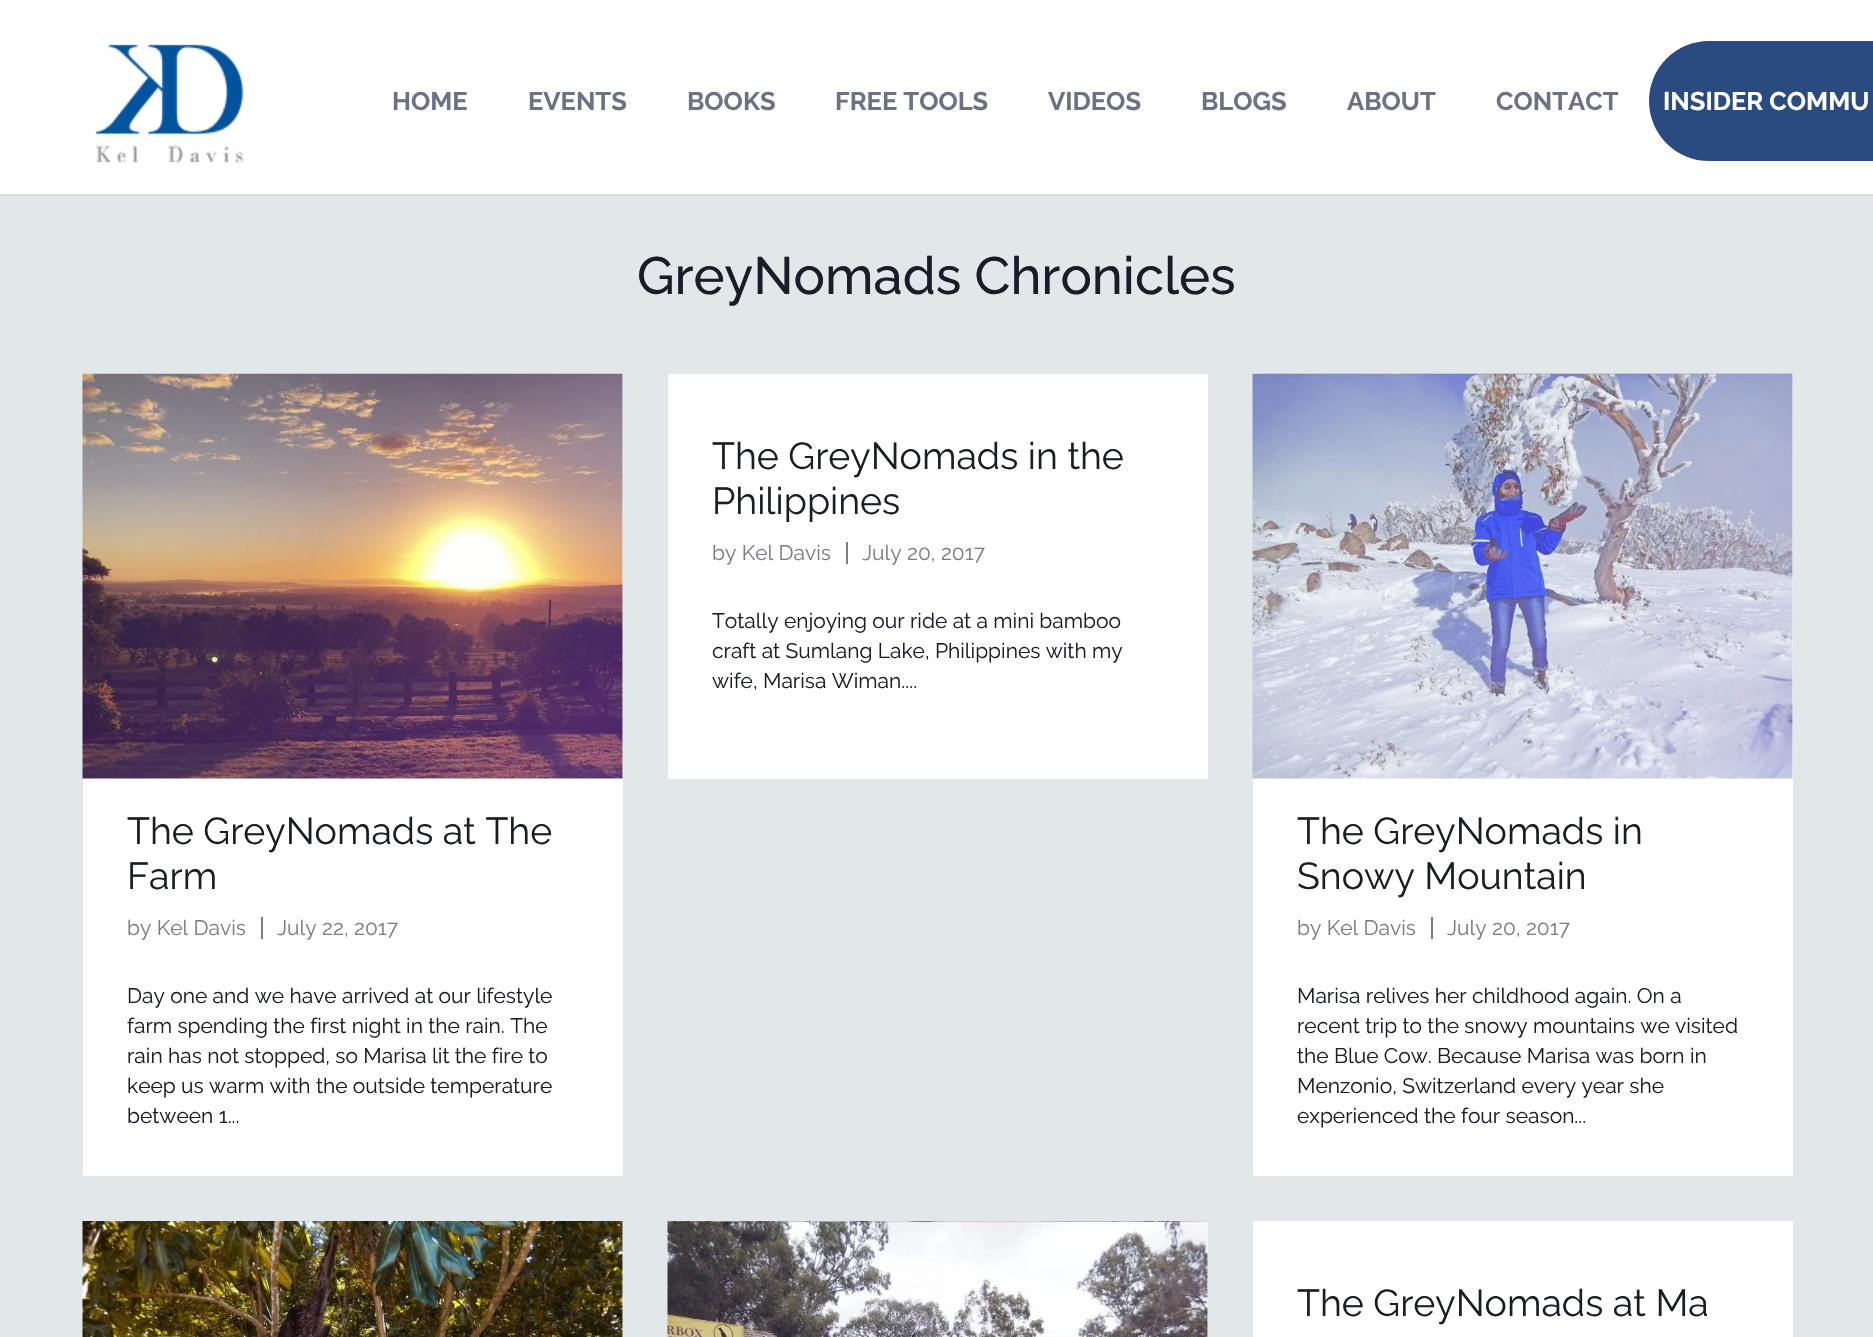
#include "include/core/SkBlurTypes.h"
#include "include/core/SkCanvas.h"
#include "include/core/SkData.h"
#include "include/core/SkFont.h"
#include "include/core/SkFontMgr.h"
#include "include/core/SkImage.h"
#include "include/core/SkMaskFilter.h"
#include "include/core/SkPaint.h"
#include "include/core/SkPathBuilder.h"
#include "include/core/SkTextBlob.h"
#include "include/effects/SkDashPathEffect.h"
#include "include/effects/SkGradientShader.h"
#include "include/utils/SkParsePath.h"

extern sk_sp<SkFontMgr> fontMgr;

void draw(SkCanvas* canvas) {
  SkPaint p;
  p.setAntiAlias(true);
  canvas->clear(SkColorSetRGB(226, 231, 234));
  p.setColor(SK_ColorWHITE);
  canvas->drawRect(SkRect::MakeLTRB(0, 0, 1873, 194), p);
  p.setColor(SkColorSetRGB(217, 217, 217));
  canvas->drawRect(SkRect::MakeLTRB(0, 194, 1873, 196), p);
  canvas->drawImageRect(SkImages::DeferredFromEncodedData(SkData::MakeFromFileName("images/1.png")), SkRect::MakeLTRB(95, 44, 244, 163), SkSamplingOptions());
  p.setColor(SkColorSetRGB(42, 75, 128));
  canvas->drawRoundRect(SkRect::MakeLTRB(1649, 41, 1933, 161), 60, 60, p);
  p.setColor(SK_ColorWHITE);
  canvas->drawRect(SkRect::MakeLTRB(668, 374, 1208, 779), p);
  p.setColor(SkColorSetRGB(123, 125, 131));
  canvas->drawRect(SkRect::MakeLTRB(846, 542, 848, 564), p);
  p.setColor(SK_ColorWHITE);
  canvas->drawRect(SkRect::MakeLTRB(83, 374, 623, 1176), p);
  canvas->drawImageRect(SkImages::DeferredFromEncodedData(SkData::MakeFromFileName("images/2.png")), SkRect::MakeLTRB(82, 373, 623, 779), SkSamplingOptions());
  p.setColor(SkColorSetRGB(123, 125, 131));
  canvas->drawRect(SkRect::MakeLTRB(261, 917, 263, 939), p);
  p.setColor(SK_ColorWHITE);
  canvas->drawRect(SkRect::MakeLTRB(1253, 374, 1793, 1176), p);
  canvas->drawImageRect(SkImages::DeferredFromEncodedData(SkData::MakeFromFileName("images/3.png")), SkRect::MakeLTRB(1252, 373, 1793, 779), SkSamplingOptions());
  p.setColor(SkColorSetRGB(123, 125, 131));
  canvas->drawRect(SkRect::MakeLTRB(1431, 917, 1433, 939), p);
  p.setColor(SK_ColorWHITE);
  canvas->drawRect(SkRect::MakeLTRB(622, 1221, 623, 1337), p);
  canvas->drawImageRect(SkImages::DeferredFromEncodedData(SkData::MakeFromFileName("images/4.png")), SkRect::MakeLTRB(82, 1221, 623, 1337), SkSamplingOptions());
  canvas->drawRect(SkRect::MakeLTRB(1207, 1221, 1208, 1337), p);
  canvas->drawImageRect(SkImages::DeferredFromEncodedData(SkData::MakeFromFileName("images/5.png")), SkRect::MakeLTRB(667, 1221, 1208, 1337), SkSamplingOptions());
  canvas->drawRect(SkRect::MakeLTRB(1253, 1221, 1793, 1337), p);
  SkFont font1(fontMgr->matchFamilyStyle("Raleway", SkFontStyle::Bold()), 25.5f);
  font1.setSubpixel(true);
  p.setColor(SkColorSetRGB(106, 114, 132));
  canvas->drawString("HOME", 392, 110, font1, p);
  canvas->drawString("EVENTS", 528, 110, font1, p);
  canvas->drawString("BOOKS", 687, 110, font1, p);
  canvas->drawString("FREE TOOLS", 835, 110, font1, p);
  canvas->drawString("VIDEOS", 1048, 110, font1, p);
  canvas->drawString("BLOGS", 1201, 110, font1, p);
  canvas->drawString("ABOUT", 1347, 110, font1, p);
  canvas->drawString("CONTACT", 1496, 110, font1, p);
  p.setColor(SK_ColorWHITE);
  canvas->drawString("INSIDER COMMU", 1663, 110, font1, p);
  SkFont font2(fontMgr->matchFamilyStyle("Raleway", SkFontStyle(500, SkFontStyle::kNormal_Width, SkFontStyle::kUpright_Slant)), 52.5f);
  font2.setSubpixel(true);
  p.setColor(SkColorSetRGB(26, 29, 38));
  canvas->drawString("GreyNomads Chronicles", 637, 294, font2, p);
  SkFont font3(fontMgr->matchFamilyStyle("Raleway", SkFontStyle::Normal()), 37.5f);
  font3.setSubpixel(true);
  canvas->drawString("The GreyNomads in the", 712, 469, font3, p);
  canvas->drawString("Philippines", 712, 514, font3, p);
  SkFont font4(fontMgr->matchFamilyStyle("Raleway", SkFontStyle::Normal()), 21);
  font4.setSubpixel(true);
  p.setColor(SkColorSetRGB(123, 125, 131));
  canvas->drawString("by Kel Davis", 712, 560, font4, p);
  canvas->drawString("July 20, 2017", 862, 560, font4, p);
  p.setColor(SkColorSetRGB(26, 29, 38));
  canvas->drawString("Totally enjoying our ride at a mini bamboo", 712, 628, font4, p);
  canvas->drawString("craft at Sumlang Lake, Philippines with my", 712, 658, font4, p);
  canvas->drawString("wife, Marisa Wiman....", 712, 688, font4, p);
  canvas->drawString("The GreyNomads at The", 127, 844, font3, p);
  canvas->drawString("Farm", 127, 889, font3, p);
  p.setColor(SkColorSetRGB(123, 125, 131));
  canvas->drawString("by Kel Davis", 127, 935, font4, p);
  canvas->drawString("July 22, 2017", 277, 935, font4, p);
  p.setColor(SkColorSetRGB(26, 29, 38));
  canvas->drawString("Day one and we have arrived at our lifestyle", 127, 1003, font4, p);
  canvas->drawString("farm spending the first night in the rain. The", 127, 1033, font4, p);
  canvas->drawString("rain has not stopped, so Marisa lit the fire to", 127, 1063, font4, p);
  canvas->drawString("keep us warm with the outside temperature", 127, 1093, font4, p);
  canvas->drawString("between 1...", 127, 1123, font4, p);
  canvas->drawString("The GreyNomads in", 1297, 844, font3, p);
  canvas->drawString("Snowy Mountain", 1297, 889, font3, p);
  p.setColor(SkColorSetRGB(123, 125, 131));
  canvas->drawString("by Kel Davis", 1297, 935, font4, p);
  canvas->drawString("July 20, 2017", 1447, 935, font4, p);
  p.setColor(SkColorSetRGB(26, 29, 38));
  canvas->drawString("Marisa relives her childhood again. On a", 1297, 1003, font4, p);
  canvas->drawString("recent trip to the snowy mountains we visited", 1297, 1033, font4, p);
  canvas->drawString("the Blue Cow. Because Marisa was born in", 1297, 1063, font4, p);
  canvas->drawString("Menzonio, Switzerland every year she", 1297, 1093, font4, p);
  canvas->drawString("experienced the four season...", 1297, 1123, font4, p);
  canvas->drawString("The GreyNomads at Ma", 1297, 1316, font3, p);
}
